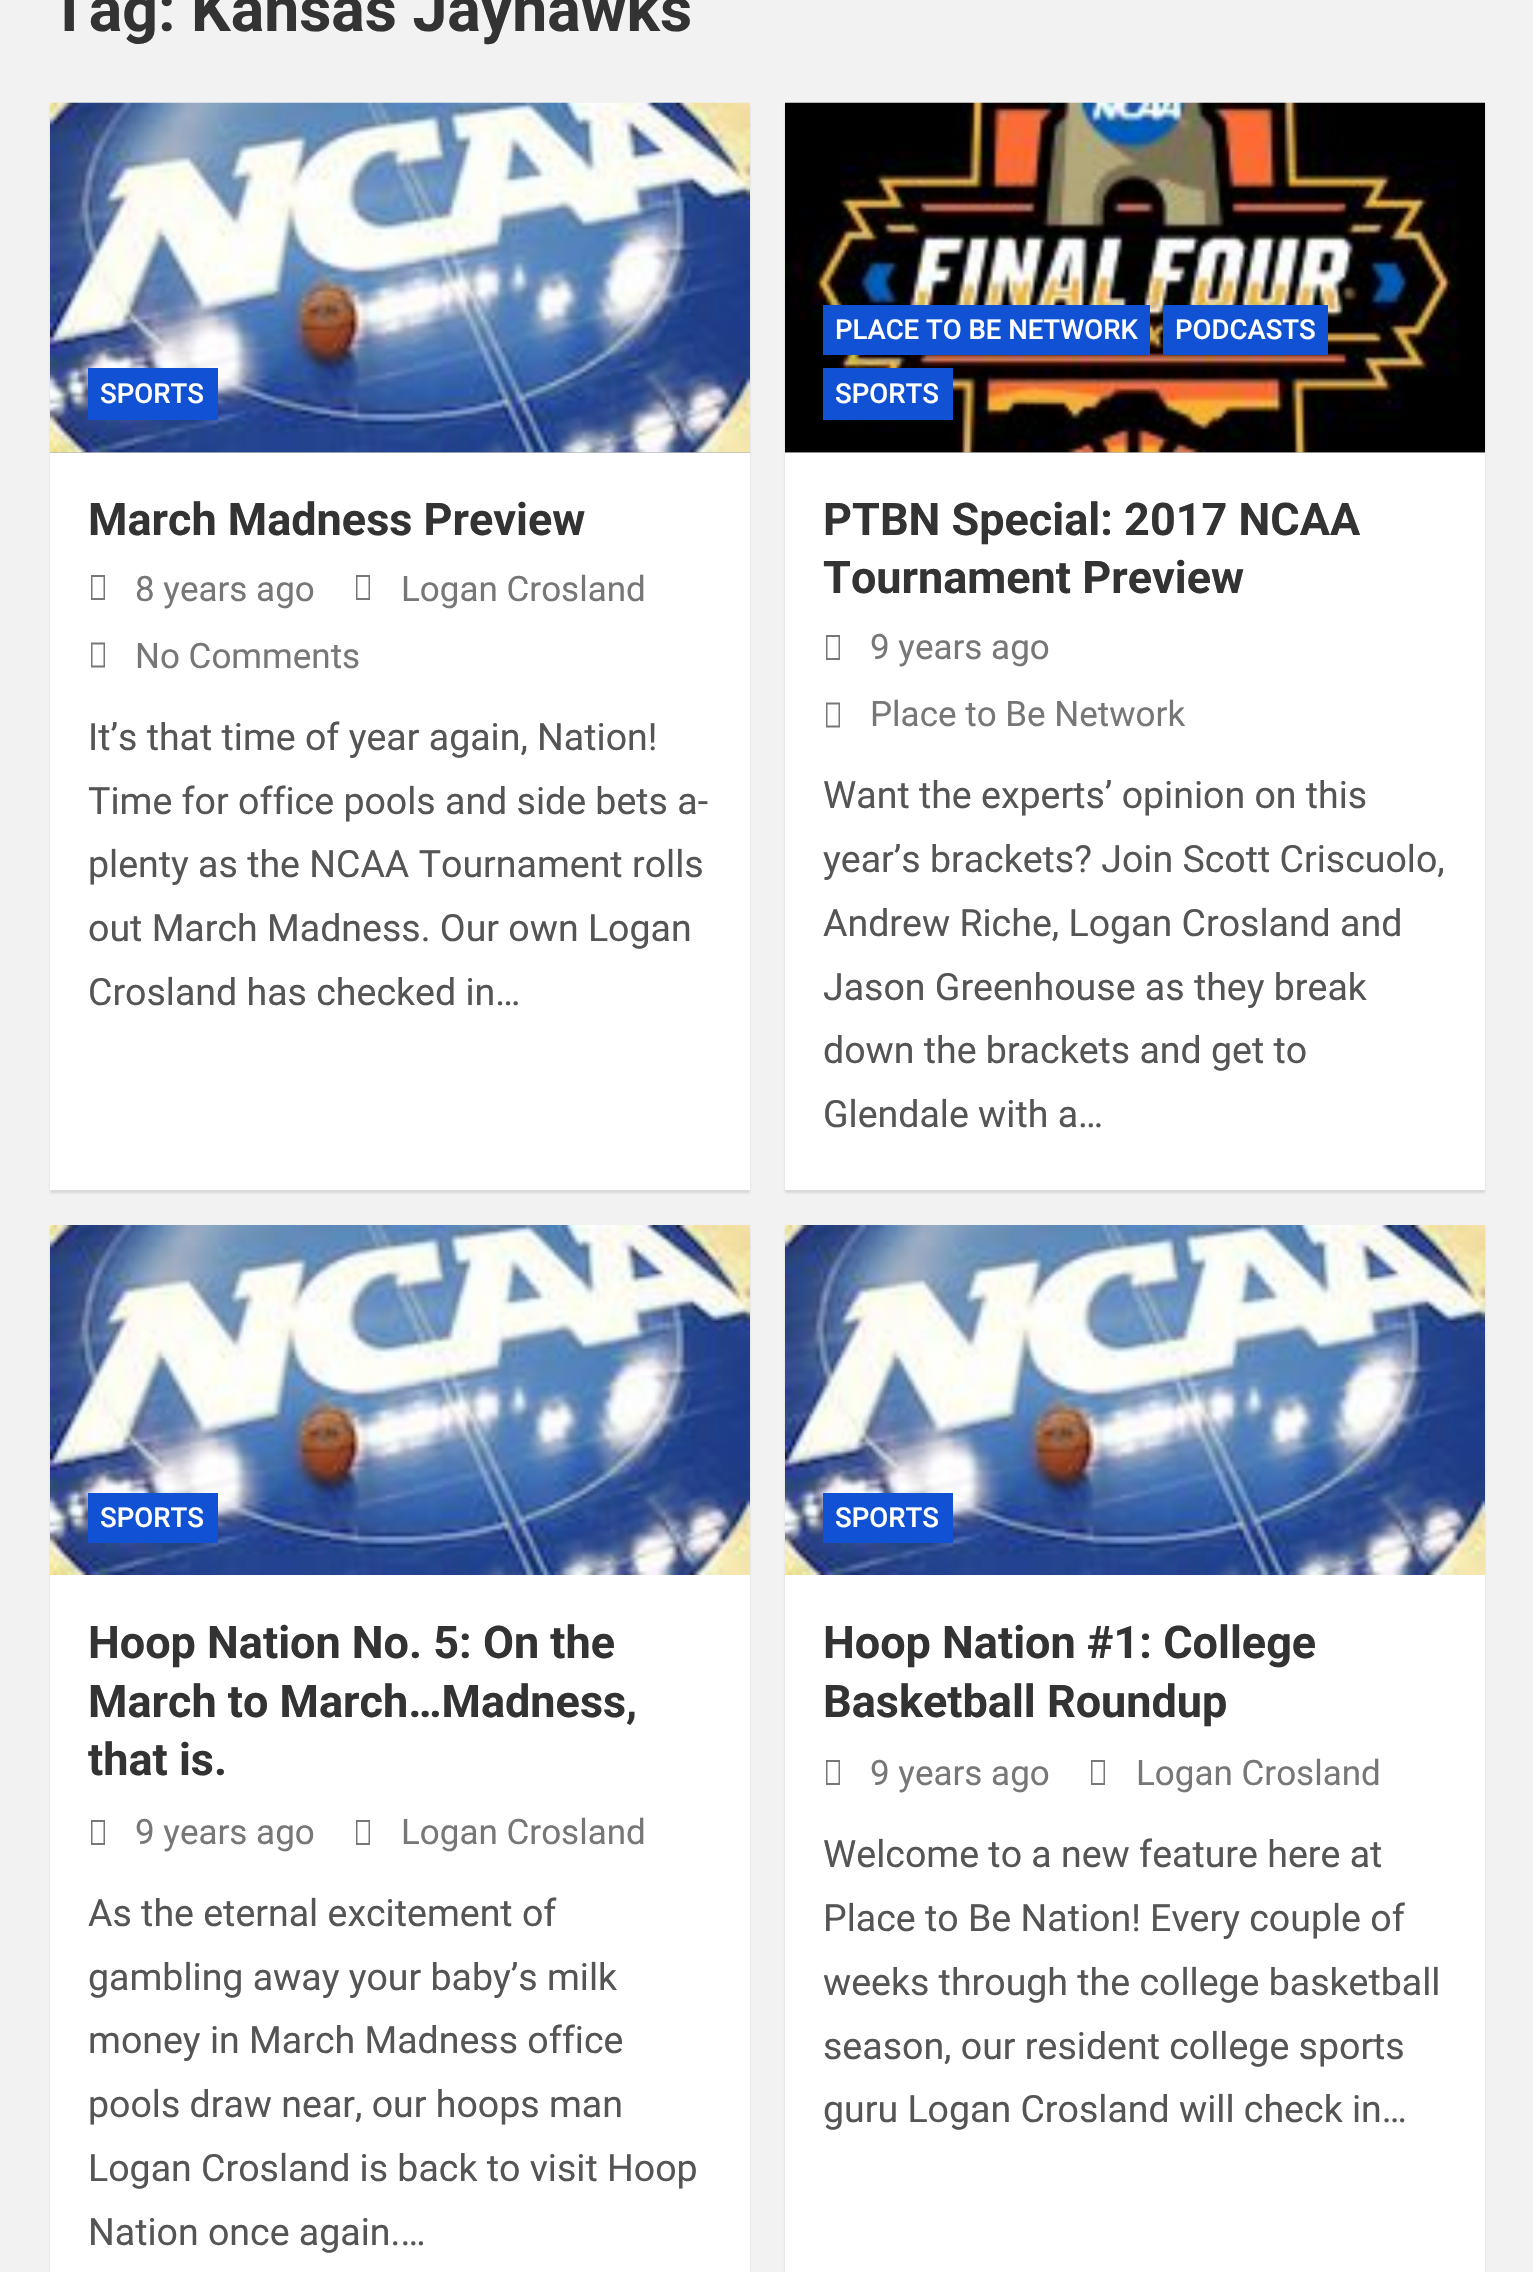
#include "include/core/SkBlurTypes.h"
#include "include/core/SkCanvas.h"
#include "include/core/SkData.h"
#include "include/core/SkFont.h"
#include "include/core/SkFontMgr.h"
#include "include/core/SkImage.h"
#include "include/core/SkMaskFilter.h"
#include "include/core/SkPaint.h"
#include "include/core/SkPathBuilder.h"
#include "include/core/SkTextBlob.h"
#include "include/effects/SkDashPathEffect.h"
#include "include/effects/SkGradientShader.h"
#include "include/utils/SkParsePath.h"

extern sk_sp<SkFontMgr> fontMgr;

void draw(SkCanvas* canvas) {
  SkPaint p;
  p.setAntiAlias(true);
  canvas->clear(SkColorSetRGB(242, 242, 242));
  p.setColor(SkColorSetARGB(26, 0, 0, 0));
  p.setMaskFilter(SkMaskFilter::MakeBlur(kNormal_SkBlurStyle, 1));
  canvas->drawRect(SkRect::MakeLTRB(50, 105, 750, 1193), p);
  p.setMaskFilter(nullptr);
  p.setColor(SK_ColorWHITE);
  canvas->drawRect(SkRect::MakeLTRB(50, 453, 750, 1190), p);
  p.setColor(SkColorSetRGB(187, 187, 187));
  canvas->drawRect(SkRect::MakeLTRB(50, 452, 750, 453), p);
  canvas->drawImageRect(SkImages::DeferredFromEncodedData(SkData::MakeFromFileName("images/1.png")), SkRect::MakeLTRB(50, 102, 750, 453), SkSamplingOptions());
  p.setColor(SkColorSetRGB(17, 81, 211));
  canvas->drawRect(SkRect::MakeLTRB(88, 368, 218, 420), p);
  p.setColor(SkColorSetRGB(119, 119, 119));
  canvas->drawPath(SkPathBuilder().moveTo(91, 600).lineTo(91, 575).lineTo(105, 575).lineTo(105, 600).close().moveTo(92.5f, 598).lineTo(103.5f, 598).lineTo(103.5f, 577).lineTo(92.5f, 577).close().detach(), p);
  canvas->drawPath(SkPathBuilder().moveTo(356, 600).lineTo(356, 575).lineTo(370, 575).lineTo(370, 600).close().moveTo(357.5f, 598).lineTo(368.5f, 598).lineTo(368.5f, 577).lineTo(357.5f, 577).close().detach(), p);
  canvas->drawPath(SkPathBuilder().moveTo(91, 667.5f).lineTo(91, 642.5f).lineTo(105, 642.5f).lineTo(105, 667.5f).close().moveTo(92.5f, 665.5f).lineTo(103.5f, 665.5f).lineTo(103.5f, 644.5f).lineTo(92.5f, 644.5f).close().detach(), p);
  p.setColor(SkColorSetARGB(26, 0, 0, 0));
  p.setMaskFilter(SkMaskFilter::MakeBlur(kNormal_SkBlurStyle, 1));
  canvas->drawRect(SkRect::MakeLTRB(785, 105, 1485, 1193), p);
  p.setMaskFilter(nullptr);
  p.setColor(SK_ColorWHITE);
  canvas->drawRect(SkRect::MakeLTRB(785, 453, 1485, 1190), p);
  p.setColor(SkColorSetRGB(187, 187, 187));
  canvas->drawRect(SkRect::MakeLTRB(785, 452, 1485, 453), p);
  canvas->drawImageRect(SkImages::DeferredFromEncodedData(SkData::MakeFromFileName("images/2.png")), SkRect::MakeLTRB(785, 102, 1485, 453), SkSamplingOptions());
  p.setColor(SkColorSetRGB(17, 81, 211));
  canvas->drawRect(SkRect::MakeLTRB(823, 305, 1150, 355), p);
  canvas->drawRect(SkRect::MakeLTRB(1163, 305, 1328, 355), p);
  canvas->drawRect(SkRect::MakeLTRB(823, 368, 953, 420), p);
  p.setColor(SkColorSetRGB(119, 119, 119));
  canvas->drawPath(SkPathBuilder().moveTo(826, 660).lineTo(826, 635).lineTo(840, 635).lineTo(840, 660).close().moveTo(827.5f, 658).lineTo(838.5f, 658).lineTo(838.5f, 637).lineTo(827.5f, 637).close().detach(), p);
  canvas->drawPath(SkPathBuilder().moveTo(826, 727.5f).lineTo(826, 702.5f).lineTo(840, 702.5f).lineTo(840, 727.5f).close().moveTo(827.5f, 725.5f).lineTo(838.5f, 725.5f).lineTo(838.5f, 704.5f).lineTo(827.5f, 704.5f).close().detach(), p);
  p.setColor(SkColorSetARGB(26, 0, 0, 0));
  p.setMaskFilter(SkMaskFilter::MakeBlur(kNormal_SkBlurStyle, 1));
  canvas->drawRect(SkRect::MakeLTRB(50, 1228, 750, 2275), p);
  p.setMaskFilter(nullptr);
  p.setColor(SK_ColorWHITE);
  canvas->drawRect(SkRect::MakeLTRB(50, 1575, 750, 2272), p);
  canvas->drawImageRect(SkImages::DeferredFromEncodedData(SkData::MakeFromFileName("images/3.png")), SkRect::MakeLTRB(50, 1225, 750, 1575), SkSamplingOptions());
  p.setColor(SkColorSetRGB(17, 81, 211));
  canvas->drawRect(SkRect::MakeLTRB(88, 1493, 218, 1543), p);
  p.setColor(SkColorSetRGB(119, 119, 119));
  canvas->drawPath(SkPathBuilder().moveTo(91, 1845).lineTo(91, 1820).lineTo(105, 1820).lineTo(105, 1845).close().moveTo(92.5f, 1843).lineTo(103.5f, 1843).lineTo(103.5f, 1822).lineTo(92.5f, 1822).close().detach(), p);
  canvas->drawPath(SkPathBuilder().moveTo(356, 1845).lineTo(356, 1820).lineTo(370, 1820).lineTo(370, 1845).close().moveTo(357.5f, 1843).lineTo(368.5f, 1843).lineTo(368.5f, 1822).lineTo(357.5f, 1822).close().detach(), p);
  p.setColor(SkColorSetARGB(26, 0, 0, 0));
  p.setMaskFilter(SkMaskFilter::MakeBlur(kNormal_SkBlurStyle, 1));
  canvas->drawRect(SkRect::MakeLTRB(785, 1228, 1485, 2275), p);
  p.setMaskFilter(nullptr);
  p.setColor(SK_ColorWHITE);
  canvas->drawRect(SkRect::MakeLTRB(785, 1575, 1485, 2272), p);
  canvas->drawImageRect(SkImages::DeferredFromEncodedData(SkData::MakeFromFileName("images/4.png")), SkRect::MakeLTRB(785, 1225, 1485, 1575), SkSamplingOptions());
  p.setColor(SkColorSetRGB(17, 81, 211));
  canvas->drawRect(SkRect::MakeLTRB(823, 1493, 953, 1543), p);
  p.setColor(SkColorSetRGB(119, 119, 119));
  canvas->drawPath(SkPathBuilder().moveTo(826, 1785).lineTo(826, 1760).lineTo(840, 1760).lineTo(840, 1785).close().moveTo(827.5f, 1783).lineTo(838.5f, 1783).lineTo(838.5f, 1762).lineTo(827.5f, 1762).close().detach(), p);
  canvas->drawPath(SkPathBuilder().moveTo(1091, 1785).lineTo(1091, 1760).lineTo(1105, 1760).lineTo(1105, 1785).close().moveTo(1092.5f, 1783).lineTo(1103.5f, 1783).lineTo(1103.5f, 1762).lineTo(1092.5f, 1762).close().detach(), p);
  SkFont font1(fontMgr->matchFamilyStyle("Roboto", SkFontStyle::Bold()), 62.5f);
  font1.setSubpixel(true);
  p.setColor(SkColorSetRGB(51, 51, 51));
  canvas->drawString("Tag: Kansas Jayhawks", 50, 31, font1, p);
  SkFont font2(fontMgr->matchFamilyStyle("Roboto", SkFontStyle(500, SkFontStyle::kNormal_Width, SkFontStyle::kUpright_Slant)), 27.5f);
  font2.setSubpixel(true);
  p.setColor(SK_ColorWHITE);
  canvas->drawString("SPORTS", 100, 403, font2, p);
  SkFont font3(fontMgr->matchFamilyStyle("Roboto", SkFontStyle::Bold()), 45);
  font3.setSubpixel(true);
  p.setColor(SkColorSetRGB(51, 51, 51));
  canvas->drawString("March Madness Preview", 88, 535, font3, p);
  SkFont font4(fontMgr->matchFamilyStyle("Roboto", SkFontStyle::Normal()), 35);
  font4.setSubpixel(true);
  p.setColor(SkColorSetRGB(119, 119, 119));
  canvas->drawString("8 years ago", 135, 601, font4, p);
  canvas->drawString("Logan Crosland", 401, 601, font4, p);
  canvas->drawString("No Comments", 135, 668, font4, p);
  SkFont font5(fontMgr->matchFamilyStyle("Roboto", SkFontStyle::Normal()), 37.5f);
  font5.setSubpixel(true);
  p.setColor(SkColorSetRGB(85, 85, 85));
  canvas->drawString("It’s that time of year again, Nation!", 88, 750, font5, p);
  canvas->drawString("Time for office pools and side bets a-", 88, 814, font5, p);
  canvas->drawString("plenty as the NCAA Tournament rolls", 88, 877, font5, p);
  canvas->drawString("out March Madness. Our own Logan", 88, 941, font5, p);
  canvas->drawString("Crosland has checked in…", 88, 1005, font5, p);
  p.setColor(SK_ColorWHITE);
  canvas->drawString("PLACE TO BE NETWORK", 835, 339, font2, p);
  canvas->drawString("PODCASTS", 1175, 339, font2, p);
  canvas->drawString("SPORTS", 835, 403, font2, p);
  p.setColor(SkColorSetRGB(51, 51, 51));
  canvas->drawString("PTBN Special: 2017 NCAA", 823, 535, font3, p);
  canvas->drawString("Tournament Preview", 823, 593, font3, p);
  p.setColor(SkColorSetRGB(119, 119, 119));
  canvas->drawString("9 years ago", 870, 659, font4, p);
  canvas->drawString("Place to Be Network", 870, 726, font4, p);
  p.setColor(SkColorSetRGB(85, 85, 85));
  canvas->drawString("Want the experts’ opinion on this", 823, 808, font5, p);
  canvas->drawString("year’s brackets? Join Scott Criscuolo,", 823, 872, font5, p);
  canvas->drawString("Andrew Riche, Logan Crosland and", 823, 936, font5, p);
  canvas->drawString("Jason Greenhouse as they break", 823, 1000, font5, p);
  canvas->drawString("down the brackets and get to", 823, 1063, font5, p);
  canvas->drawString("Glendale with a…", 823, 1127, font5, p);
  p.setColor(SK_ColorWHITE);
  canvas->drawString("SPORTS", 100, 1527, font2, p);
  p.setColor(SkColorSetRGB(51, 51, 51));
  canvas->drawString("Hoop Nation No. 5: On the", 88, 1658, font3, p);
  canvas->drawString("March to March…Madness,", 88, 1717, font3, p);
  canvas->drawString("that is.", 88, 1775, font3, p);
  p.setColor(SkColorSetRGB(119, 119, 119));
  canvas->drawString("9 years ago", 135, 1844, font4, p);
  canvas->drawString("Logan Crosland", 401, 1844, font4, p);
  p.setColor(SkColorSetRGB(85, 85, 85));
  canvas->drawString("As the eternal excitement of", 88, 1926, font5, p);
  canvas->drawString("gambling away your baby’s milk", 88, 1990, font5, p);
  canvas->drawString("money in March Madness office", 88, 2053, font5, p);
  canvas->drawString("pools draw near, our hoops man", 88, 2117, font5, p);
  canvas->drawString("Logan Crosland is back to visit Hoop", 88, 2181, font5, p);
  canvas->drawString("Nation once again.…", 88, 2245, font5, p);
  p.setColor(SK_ColorWHITE);
  canvas->drawString("SPORTS", 835, 1527, font2, p);
  p.setColor(SkColorSetRGB(51, 51, 51));
  canvas->drawString("Hoop Nation #1: College", 823, 1658, font3, p);
  canvas->drawString("Basketball Roundup", 823, 1717, font3, p);
  p.setColor(SkColorSetRGB(119, 119, 119));
  canvas->drawString("9 years ago", 870, 1785, font4, p);
  canvas->drawString("Logan Crosland", 1136, 1785, font4, p);
  p.setColor(SkColorSetRGB(85, 85, 85));
  canvas->drawString("Welcome to a new feature here at", 823, 1867, font5, p);
  canvas->drawString("Place to Be Nation! Every couple of", 823, 1931, font5, p);
  canvas->drawString("weeks through the college basketball", 823, 1995, font5, p);
  canvas->drawString("season, our resident college sports", 823, 2059, font5, p);
  canvas->drawString("guru Logan Crosland will check in…", 823, 2122, font5, p);
}
